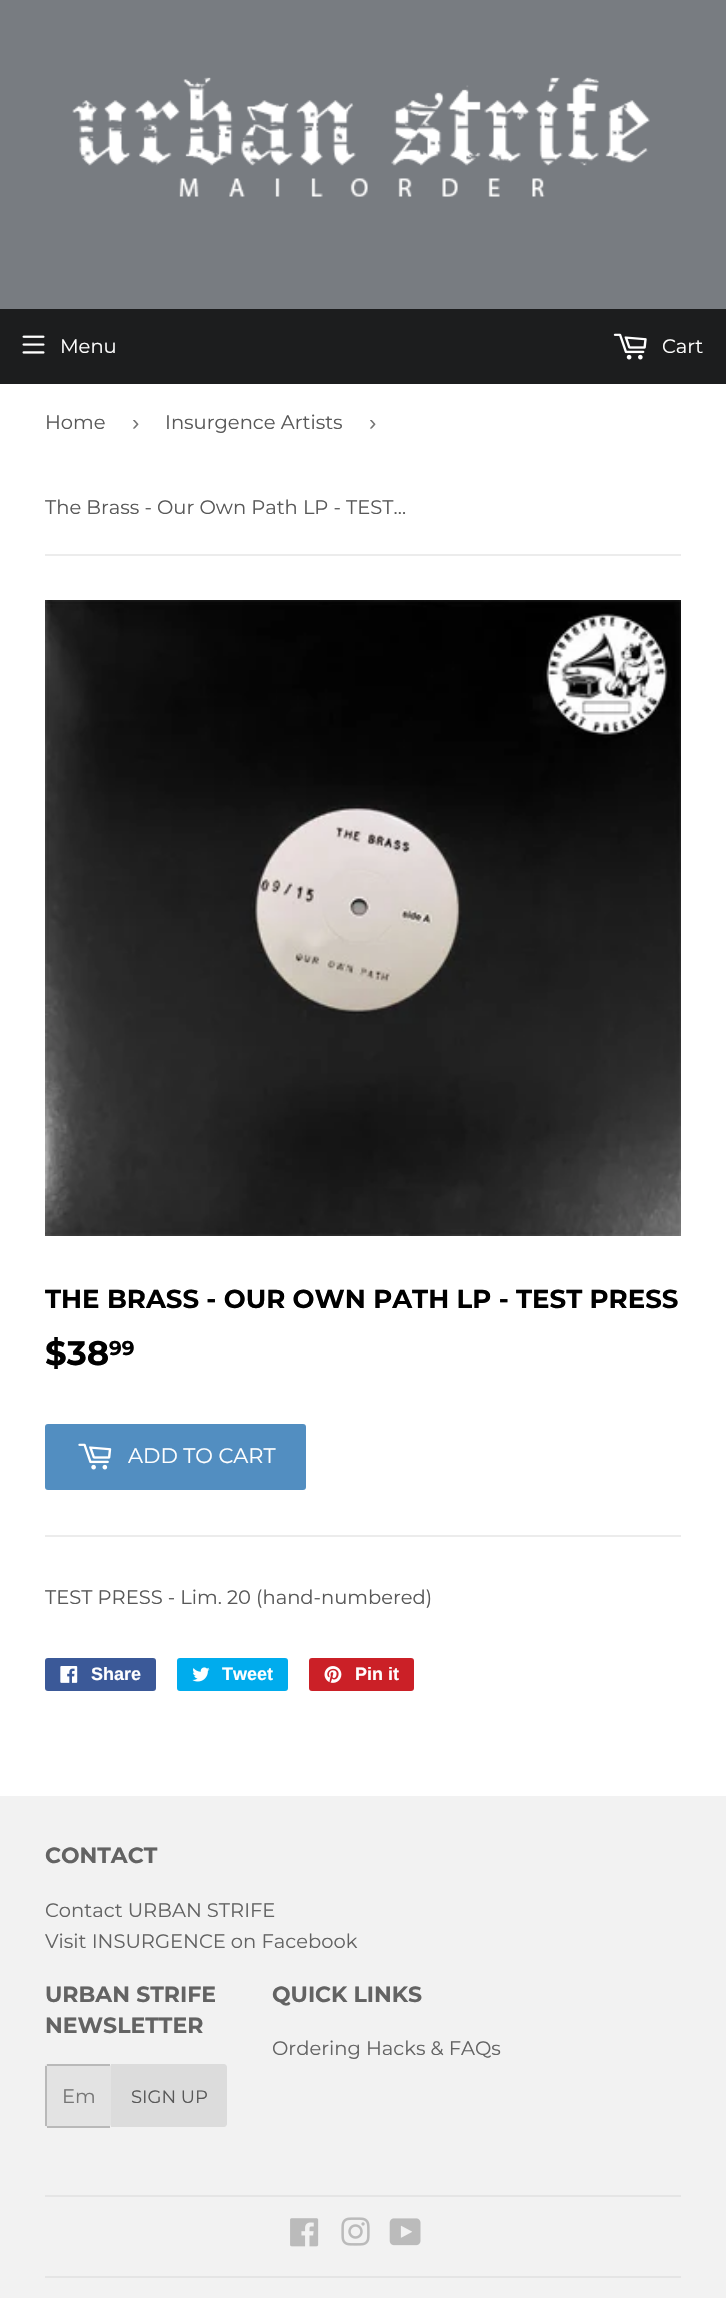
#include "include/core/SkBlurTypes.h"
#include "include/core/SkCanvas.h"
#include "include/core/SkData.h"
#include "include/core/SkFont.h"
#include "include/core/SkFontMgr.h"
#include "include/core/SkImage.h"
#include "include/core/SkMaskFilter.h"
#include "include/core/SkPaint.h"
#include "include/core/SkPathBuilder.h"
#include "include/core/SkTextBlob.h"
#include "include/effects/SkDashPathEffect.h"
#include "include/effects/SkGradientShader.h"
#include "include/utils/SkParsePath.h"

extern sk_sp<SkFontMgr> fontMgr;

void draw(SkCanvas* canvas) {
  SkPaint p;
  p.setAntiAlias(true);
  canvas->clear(SK_ColorWHITE);
  p.setColor(SkColorSetRGB(120, 124, 129));
  canvas->drawRect(SkRect::MakeLTRB(0, 0, 726, 309), p);
  canvas->drawImageRect(SkImages::DeferredFromEncodedData(SkData::MakeFromFileName("images/1.png")), SkRect::MakeLTRB(72, 77, 650, 197), SkSamplingOptions());
  p.setColor(SkColorSetRGB(28, 29, 30));
  canvas->drawRect(SkRect::MakeLTRB(0, 309, 726, 384), p);
  canvas->drawImageRect(SkImages::DeferredFromEncodedData(SkData::MakeFromFileName("images/2.png")), SkRect::MakeLTRB(22, 335, 45, 354), SkSamplingOptions());
  canvas->drawImageRect(SkImages::DeferredFromEncodedData(SkData::MakeFromFileName("images/3.png")), SkRect::MakeLTRB(613, 333, 647, 360), SkSamplingOptions());
  p.setColor(SkColorSetRGB(236, 236, 236));
  canvas->drawRect(SkRect::MakeLTRB(45, 554, 681, 556), p);
  canvas->drawImageRect(SkImages::DeferredFromEncodedData(SkData::MakeFromFileName("images/4.png")), SkRect::MakeLTRB(45, 600, 681, 1236), SkSamplingOptions());
  p.setColor(SkColorSetRGB(82, 142, 193));
  canvas->drawRoundRect(SkRect::MakeLTRB(45, 1424, 306, 1490), 3, 3, p);
  canvas->drawImageRect(SkImages::DeferredFromEncodedData(SkData::MakeFromFileName("images/5.png")), SkRect::MakeLTRB(78, 1443, 112, 1470), SkSamplingOptions());
  p.setColor(SkColorSetRGB(236, 236, 236));
  canvas->drawRect(SkRect::MakeLTRB(45, 1535, 681, 1537), p);
  p.setColor(SkColorSetRGB(59, 89, 152));
  canvas->drawRoundRect(SkRect::MakeLTRB(45, 1658, 156, 1691), 3, 3, p);
  canvas->drawImageRect(SkImages::DeferredFromEncodedData(SkData::MakeFromFileName("images/6.png")), SkRect::MakeLTRB(60, 1666, 78, 1683), SkSamplingOptions());
  p.setColor(SkColorSetRGB(0, 172, 237));
  canvas->drawRoundRect(SkRect::MakeLTRB(177, 1658, 288, 1691), 3, 3, p);
  canvas->drawImageRect(SkImages::DeferredFromEncodedData(SkData::MakeFromFileName("images/7.png")), SkRect::MakeLTRB(192, 1667, 210, 1682), SkSamplingOptions());
  p.setColor(SkColorSetRGB(203, 32, 39));
  canvas->drawRoundRect(SkRect::MakeLTRB(309, 1658, 414, 1691), 3, 3, p);
  canvas->drawImageRect(SkImages::DeferredFromEncodedData(SkData::MakeFromFileName("images/8.png")), SkRect::MakeLTRB(324, 1666, 342, 1683), SkSamplingOptions());
  p.setColor(SkColorSetRGB(242, 242, 242));
  canvas->drawRect(SkRect::MakeLTRB(0, 1796, 726, 2298), p);
  p.setColor(SkColorSetRGB(227, 227, 227));
  canvas->drawRoundRect(SkRect::MakeLTRB(45, 2064, 111, 2127), 3, 3, p);
  p.setColor(SkColorSetRGB(185, 185, 185));
  canvas->drawRect(SkRect::MakeLTRB(47, 2064, 110, 2066), p);
  canvas->drawRect(SkRect::MakeLTRB(47, 2126, 110, 2128), p);
  canvas->drawRect(SkRect::MakeLTRB(45, 2066, 47, 2126), p);
  p.setColor(SkColorSetRGB(220, 220, 220));
  canvas->drawPath(SkPathBuilder().moveTo(111, 2064).lineTo(224, 2064).cubicTo(225.5f, 2064, 227, 2065.5f, 227, 2067).lineTo(227, 2124).cubicTo(227, 2125.5f, 225.5f, 2127, 224, 2127).lineTo(111, 2127).close().detach(), p);
  p.setColor(SkColorSetRGB(229, 229, 229));
  canvas->drawRect(SkRect::MakeLTRB(45, 2195, 681, 2197), p);
  canvas->drawImageRect(SkImages::DeferredFromEncodedData(SkData::MakeFromFileName("images/9.png")), SkRect::MakeLTRB(290, 2218, 319, 2247), SkSamplingOptions());
  canvas->drawImageRect(SkImages::DeferredFromEncodedData(SkData::MakeFromFileName("images/10.png")), SkRect::MakeLTRB(341, 2217, 370, 2246), SkSamplingOptions());
  canvas->drawImageRect(SkImages::DeferredFromEncodedData(SkData::MakeFromFileName("images/11.png")), SkRect::MakeLTRB(389, 2218, 421, 2246), SkSamplingOptions());
  canvas->drawRect(SkRect::MakeLTRB(45, 2276, 681, 2278), p);
  SkFont font1(fontMgr->matchFamilyStyle("Montserrat", SkFontStyle::Normal()), 19.5f);
  font1.setSubpixel(true);
  p.setColor(SK_ColorWHITE);
  canvas->drawString("Menu", 60, 353, font1, p);
  canvas->drawString("Cart", 662, 353, font1, p);
  p.setColor(SkColorSetRGB(88, 88, 88));
  canvas->drawString("Home", 45, 429, font1, p);
  SkFont font2(fontMgr->matchFamilyStyle("Liberation Sans", SkFontStyle::Normal()), 22);
  font2.setSubpixel(true);
  p.setColor(SkColorSetRGB(118, 118, 118));
  canvas->drawString("›", 132, 430, font2, p);
  p.setColor(SkColorSetRGB(88, 88, 88));
  canvas->drawString("Insurgence Artists", 165, 429, font1, p);
  p.setColor(SkColorSetRGB(118, 118, 118));
  canvas->drawString("›", 369, 430, font2, p);
  p.setColor(SkColorSetRGB(88, 88, 88));
  canvas->drawString("The Brass - Our Own Path LP - TEST…", 45, 514, font1, p);
  SkFont font3(fontMgr->matchFamilyStyle("Montserrat", SkFontStyle::Bold()), 26);
  font3.setSubpixel(true);
  p.setColor(SK_ColorBLACK);
  canvas->drawString("THE BRASS - OUR OWN PATH LP - TEST PRESS", 45, 1308, font3, p);
  SkFont font4(fontMgr->matchFamilyStyle("Montserrat", SkFontStyle::Bold()), 34);
  font4.setSubpixel(true);
  canvas->drawString("$38", 45, 1365, font4, p);
  SkFont font5(fontMgr->matchFamilyStyle("Montserrat", SkFontStyle::Bold()), 20);
  font5.setSubpixel(true);
  canvas->drawString("99", 109, 1355, font5, p);
  SkFont font6(fontMgr->matchFamilyStyle("Montserrat", SkFontStyle::Normal()), 21);
  font6.setSubpixel(true);
  p.setColor(SK_ColorWHITE);
  canvas->drawString("ADD TO CART", 128, 1463, font6, p);
  p.setColor(SkColorSetRGB(88, 88, 88));
  canvas->drawString("TEST PRESS - Lim. 20 (hand-numbered)", 45, 1604, font1, p);
  SkFont font7(fontMgr->matchFamilyStyle("Liberation Sans", SkFontStyle::Bold()), 18);
  font7.setSubpixel(true);
  p.setColor(SK_ColorWHITE);
  canvas->drawString("Share", 91, 1680, font7, p);
  canvas->drawString("Tweet", 222, 1680, font7, p);
  canvas->drawString("Pin it", 355, 1680, font7, p);
  SkFont font8(fontMgr->matchFamilyStyle("Montserrat", SkFontStyle::Bold()), 22);
  font8.setSubpixel(true);
  p.setColor(SkColorSetRGB(99, 99, 99));
  canvas->drawString("CONTACT", 45, 1863, font8, p);
  canvas->drawString("Contact URBAN STRIFE", 45, 1917, font1, p);
  canvas->drawString("Visit INSURGENCE on Facebook", 45, 1948, font1, p);
  canvas->drawString("URBAN STRIFE", 45, 2002, font8, p);
  canvas->drawString("NEWSLETTER", 45, 2033, font8, p);
  p.setColor(SkColorSetRGB(118, 118, 118));
  canvas->drawString("Em", 62, 2103, font1, p);
  SkFont font9(fontMgr->matchFamilyStyle("Montserrat", SkFontStyle::Normal()), 18);
  font9.setSubpixel(true);
  p.setColor(SkColorSetRGB(88, 88, 88));
  canvas->drawString("SIGN UP", 131, 2103, font9, p);
  p.setColor(SkColorSetRGB(99, 99, 99));
  canvas->drawString("QUICK LINKS", 272, 2002, font8, p);
  canvas->drawString("Ordering Hacks & FAQs", 272, 2055, font1, p);
}
